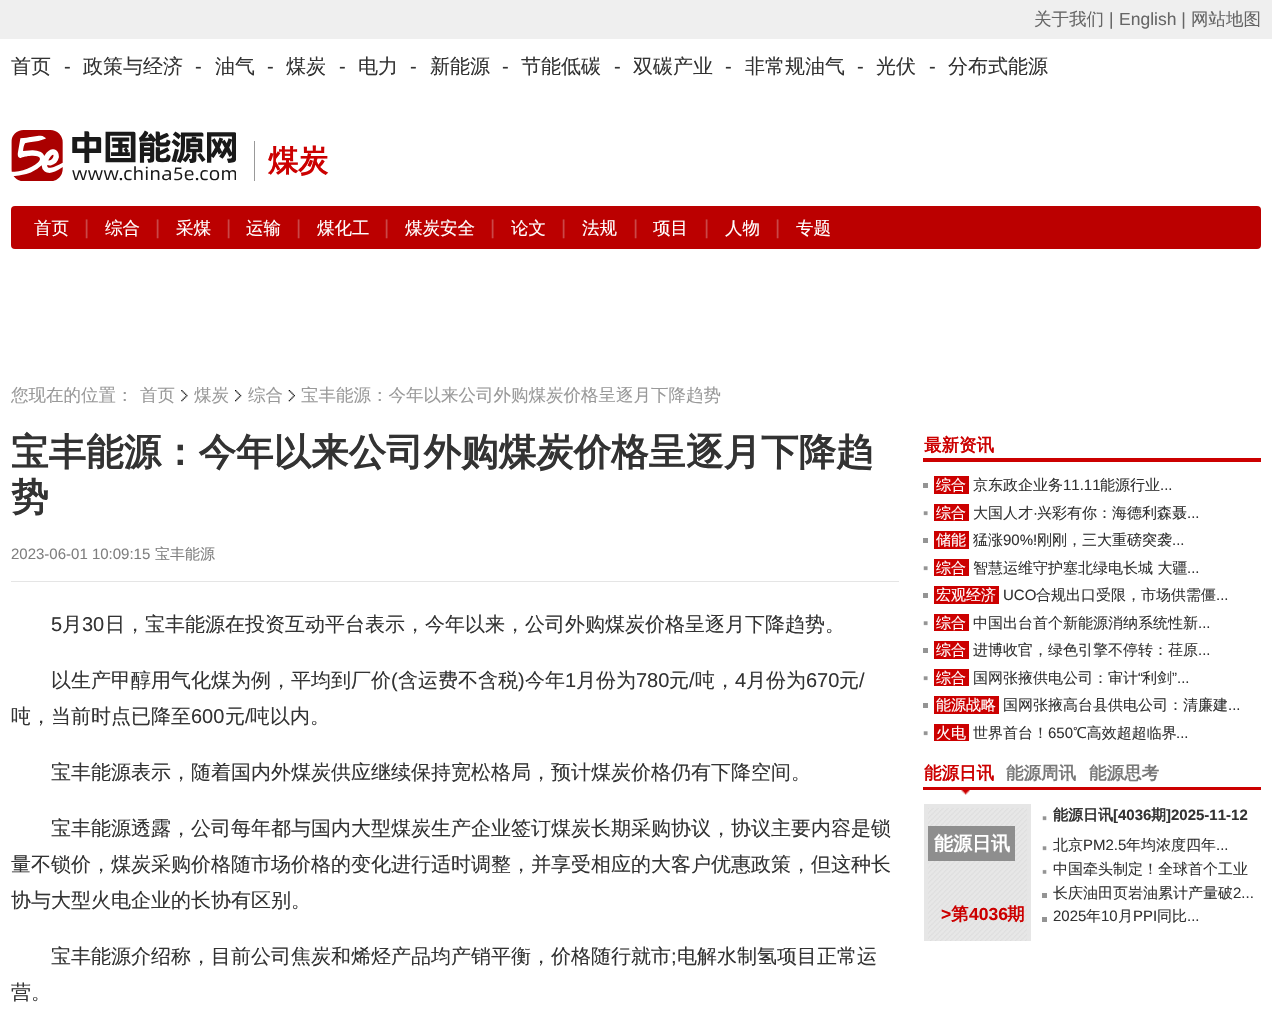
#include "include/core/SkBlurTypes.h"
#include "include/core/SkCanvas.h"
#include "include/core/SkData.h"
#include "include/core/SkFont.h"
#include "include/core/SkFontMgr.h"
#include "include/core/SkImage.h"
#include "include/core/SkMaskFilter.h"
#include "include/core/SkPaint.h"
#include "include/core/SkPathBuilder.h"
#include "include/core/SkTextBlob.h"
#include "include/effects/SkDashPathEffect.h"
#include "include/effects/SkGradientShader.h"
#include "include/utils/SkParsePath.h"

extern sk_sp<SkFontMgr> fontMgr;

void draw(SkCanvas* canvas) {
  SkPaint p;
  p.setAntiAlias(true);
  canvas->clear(SK_ColorWHITE);
  p.setColor(SkColorSetRGB(239, 239, 239));
  canvas->drawRect(SkRect::MakeLTRB(0, 0, 1272, 39), p);
  canvas->drawImageRect(SkImages::DeferredFromEncodedData(SkData::MakeFromFileName("images/1.png")), SkRect::MakeLTRB(11, 130, 236, 181), SkSamplingOptions());
  p.setColor(SkColorSetRGB(153, 153, 153));
  canvas->drawRect(SkRect::MakeLTRB(254, 141, 255, 181), p);
  p.setColor(SkColorSetRGB(187, 0, 0));
  canvas->drawRoundRect(SkRect::MakeLTRB(11, 206, 1261, 249), 4, 4, p);
  canvas->drawImageRect(SkImages::DeferredFromEncodedData(SkData::MakeFromFileName("images/2.png")), SkRect::MakeLTRB(181, 390, 188, 402), SkSamplingOptions());
  canvas->drawImageRect(SkImages::DeferredFromEncodedData(SkData::MakeFromFileName("images/3.png")), SkRect::MakeLTRB(235, 390, 242, 402), SkSamplingOptions());
  canvas->drawImageRect(SkImages::DeferredFromEncodedData(SkData::MakeFromFileName("images/4.png")), SkRect::MakeLTRB(288, 390, 295, 402), SkSamplingOptions());
  p.setColor(SkColorSetRGB(229, 229, 229));
  canvas->drawRect(SkRect::MakeLTRB(11, 581, 899, 582), p);
  p.setColor(SkColorSetRGB(204, 0, 0));
  canvas->drawRect(SkRect::MakeLTRB(923, 458, 1261, 462), p);
  p.setColor(SkColorSetRGB(148, 148, 148));
  canvas->drawRect(SkRect::MakeLTRB(923, 483, 928, 488), p);
  p.setColor(SkColorSetRGB(204, 0, 0));
  canvas->drawRect(SkRect::MakeLTRB(934, 476, 969, 494), p);
  canvas->drawImageRect(SkImages::DeferredFromEncodedData(SkData::MakeFromFileName("images/5.png")), SkRect::MakeLTRB(923, 511, 928, 516), SkSamplingOptions());
  canvas->drawRect(SkRect::MakeLTRB(934, 504, 969, 521), p);
  p.setColor(SkColorSetRGB(148, 148, 148));
  canvas->drawRect(SkRect::MakeLTRB(923, 538, 928, 543), p);
  p.setColor(SkColorSetRGB(204, 0, 0));
  canvas->drawRect(SkRect::MakeLTRB(934, 531, 969, 549), p);
  canvas->drawImageRect(SkImages::DeferredFromEncodedData(SkData::MakeFromFileName("images/5.png")), SkRect::MakeLTRB(923, 566, 928, 571), SkSamplingOptions());
  canvas->drawRect(SkRect::MakeLTRB(934, 559, 969, 576), p);
  p.setColor(SkColorSetRGB(148, 148, 148));
  canvas->drawRect(SkRect::MakeLTRB(923, 593, 928, 598), p);
  p.setColor(SkColorSetRGB(204, 0, 0));
  canvas->drawRect(SkRect::MakeLTRB(934, 586, 999, 604), p);
  canvas->drawImageRect(SkImages::DeferredFromEncodedData(SkData::MakeFromFileName("images/5.png")), SkRect::MakeLTRB(923, 621, 928, 626), SkSamplingOptions());
  canvas->drawRect(SkRect::MakeLTRB(934, 614, 969, 631), p);
  p.setColor(SkColorSetRGB(148, 148, 148));
  canvas->drawRect(SkRect::MakeLTRB(923, 648, 928, 653), p);
  p.setColor(SkColorSetRGB(204, 0, 0));
  canvas->drawRect(SkRect::MakeLTRB(934, 641, 969, 659), p);
  canvas->drawImageRect(SkImages::DeferredFromEncodedData(SkData::MakeFromFileName("images/5.png")), SkRect::MakeLTRB(923, 676, 928, 681), SkSamplingOptions());
  canvas->drawRect(SkRect::MakeLTRB(934, 669, 969, 686), p);
  p.setColor(SkColorSetRGB(148, 148, 148));
  canvas->drawRect(SkRect::MakeLTRB(923, 703, 928, 708), p);
  p.setColor(SkColorSetRGB(204, 0, 0));
  canvas->drawRect(SkRect::MakeLTRB(934, 696, 999, 714), p);
  canvas->drawImageRect(SkImages::DeferredFromEncodedData(SkData::MakeFromFileName("images/5.png")), SkRect::MakeLTRB(923, 731, 928, 736), SkSamplingOptions());
  canvas->drawRect(SkRect::MakeLTRB(934, 724, 969, 741), p);
  canvas->drawRect(SkRect::MakeLTRB(923, 787, 1261, 790), p);
  canvas->drawImageRect(SkImages::DeferredFromEncodedData(SkData::MakeFromFileName("images/6.png")), SkRect::MakeLTRB(961, 790, 970, 795), SkSamplingOptions());
  p.setColor(SkColorSetRGB(230, 230, 230));
  canvas->drawRect(SkRect::MakeLTRB(924, 804, 1031, 941), p);
  canvas->drawImageRect(SkImages::DeferredFromEncodedData(SkData::MakeFromFileName("images/7.png")), SkRect::MakeLTRB(928, 808, 1027, 941), SkSamplingOptions());
  p.setColor(SkColorSetRGB(142, 142, 142));
  canvas->drawRect(SkRect::MakeLTRB(928, 826, 1015, 861), p);
  canvas->drawImageRect(SkImages::DeferredFromEncodedData(SkData::MakeFromFileName("images/8.png")), SkRect::MakeLTRB(1042, 816, 1047, 821), SkSamplingOptions());
  canvas->drawImageRect(SkImages::DeferredFromEncodedData(SkData::MakeFromFileName("images/8.png")), SkRect::MakeLTRB(1042, 846, 1047, 851), SkSamplingOptions());
  canvas->drawImageRect(SkImages::DeferredFromEncodedData(SkData::MakeFromFileName("images/9.png")), SkRect::MakeLTRB(1042, 869, 1047, 874), SkSamplingOptions());
  p.setColor(SkColorSetRGB(148, 148, 148));
  canvas->drawRect(SkRect::MakeLTRB(1042, 893, 1047, 898), p);
  canvas->drawRect(SkRect::MakeLTRB(1042, 917, 1047, 922), p);
  SkFont font1(fontMgr->matchFamilyStyle("WenQuanYi Zen Hei", SkFontStyle(500, SkFontStyle::kNormal_Width, SkFontStyle::kUpright_Slant)), 17.5f);
  font1.setSubpixel(true);
  p.setColor(SkColorSetRGB(102, 102, 102));
  canvas->drawString("关于我们", 1034, 25, font1, p);
  SkFont font2(fontMgr->matchFamilyStyle("Liberation Sans", SkFontStyle::Normal()), 17.5f);
  font2.setSubpixel(true);
  canvas->drawString("|", 1109, 25, font2, p);
  canvas->drawString("English |", 1119, 25, font2, p);
  canvas->drawString("网站地图", 1191, 25, font1, p);
  SkFont font3(fontMgr->matchFamilyStyle("WenQuanYi Zen Hei", SkFontStyle(500, SkFontStyle::kNormal_Width, SkFontStyle::kUpright_Slant)), 20);
  font3.setSubpixel(true);
  p.setColor(SkColorSetRGB(51, 51, 51));
  canvas->drawString("首页", 11, 73, font3, p);
  SkFont font4(fontMgr->matchFamilyStyle("Liberation Sans", SkFontStyle::Normal()), 20);
  font4.setSubpixel(true);
  canvas->drawString("-", 64, 73, font4, p);
  canvas->drawString("政策与经济", 83, 73, font3, p);
  canvas->drawString("-", 195, 73, font4, p);
  canvas->drawString("油气", 215, 73, font3, p);
  canvas->drawString("-", 267, 73, font4, p);
  canvas->drawString("煤炭", 286, 73, font3, p);
  canvas->drawString("-", 339, 73, font4, p);
  canvas->drawString("电力", 358, 73, font3, p);
  canvas->drawString("-", 410, 73, font4, p);
  canvas->drawString("新能源", 430, 73, font3, p);
  canvas->drawString("-", 502, 73, font4, p);
  canvas->drawString("节能低碳", 521, 73, font3, p);
  canvas->drawString("-", 614, 73, font4, p);
  canvas->drawString("双碳产业", 633, 73, font3, p);
  canvas->drawString("-", 725, 73, font4, p);
  canvas->drawString("非常规油气", 745, 73, font3, p);
  canvas->drawString("-", 857, 73, font4, p);
  canvas->drawString("光伏", 876, 73, font3, p);
  canvas->drawString("-", 929, 73, font4, p);
  canvas->drawString("分布式能源", 948, 73, font3, p);
  SkFont font5(fontMgr->matchFamilyStyle("WenQuanYi Zen Hei", SkFontStyle::Bold()), 30);
  font5.setSubpixel(true);
  p.setColor(SkColorSetRGB(204, 0, 0));
  canvas->drawString("煤炭", 268, 171, font5, p);
  p.setColor(SK_ColorWHITE);
  canvas->drawString("首页", 34, 234, font1, p);
  p.setColor(SkColorSetRGB(202, 71, 71));
  canvas->drawString("|", 84, 234, font4, p);
  p.setColor(SK_ColorWHITE);
  canvas->drawString("综合", 105, 234, font1, p);
  p.setColor(SkColorSetRGB(202, 71, 71));
  canvas->drawString("|", 155, 234, font4, p);
  p.setColor(SK_ColorWHITE);
  canvas->drawString("采煤", 176, 234, font1, p);
  p.setColor(SkColorSetRGB(202, 71, 71));
  canvas->drawString("|", 226, 234, font4, p);
  p.setColor(SK_ColorWHITE);
  canvas->drawString("运输", 246, 234, font1, p);
  p.setColor(SkColorSetRGB(202, 71, 71));
  canvas->drawString("|", 296, 234, font4, p);
  p.setColor(SK_ColorWHITE);
  canvas->drawString("煤化工", 317, 234, font1, p);
  p.setColor(SkColorSetRGB(202, 71, 71));
  canvas->drawString("|", 384, 234, font4, p);
  p.setColor(SK_ColorWHITE);
  canvas->drawString("煤炭安全", 405, 234, font1, p);
  p.setColor(SkColorSetRGB(202, 71, 71));
  canvas->drawString("|", 490, 234, font4, p);
  p.setColor(SK_ColorWHITE);
  canvas->drawString("论文", 511, 234, font1, p);
  p.setColor(SkColorSetRGB(202, 71, 71));
  canvas->drawString("|", 561, 234, font4, p);
  p.setColor(SK_ColorWHITE);
  canvas->drawString("法规", 582, 234, font1, p);
  p.setColor(SkColorSetRGB(202, 71, 71));
  canvas->drawString("|", 633, 234, font4, p);
  p.setColor(SK_ColorWHITE);
  canvas->drawString("项目", 653, 234, font1, p);
  p.setColor(SkColorSetRGB(202, 71, 71));
  canvas->drawString("|", 704, 234, font4, p);
  p.setColor(SK_ColorWHITE);
  canvas->drawString("人物", 725, 234, font1, p);
  p.setColor(SkColorSetRGB(202, 71, 71));
  canvas->drawString("|", 775, 234, font4, p);
  p.setColor(SK_ColorWHITE);
  canvas->drawString("专题", 796, 234, font1, p);
  p.setColor(SkColorSetRGB(153, 153, 153));
  canvas->drawString("您现在的位置：", 11, 401, font1, p);
  canvas->drawString("首页", 140, 401, font1, p);
  canvas->drawString("煤炭", 194, 401, font1, p);
  canvas->drawString("综合", 248, 401, font1, p);
  canvas->drawString("宝丰能源：今年以来公司外购煤炭价格呈逐月下降趋势", 301, 401, font1, p);
  SkFont font6(fontMgr->matchFamilyStyle("WenQuanYi Zen Hei", SkFontStyle::Bold()), 37.5f);
  font6.setSubpixel(true);
  p.setColor(SkColorSetRGB(51, 51, 51));
  canvas->drawString("宝丰能源：今年以来公司外购煤炭价格呈逐月下降趋", 11, 465, font6, p);
  canvas->drawString("势", 11, 510, font6, p);
  SkFont font7(fontMgr->matchFamilyStyle("Liberation Sans", SkFontStyle::Normal()), 15);
  font7.setSubpixel(true);
  p.setColor(SkColorSetRGB(127, 127, 127));
  canvas->drawString("2023-06-01 10:09:15", 11, 559, font7, p);
  SkFont font8(fontMgr->matchFamilyStyle("WenQuanYi Zen Hei", SkFontStyle(500, SkFontStyle::kNormal_Width, SkFontStyle::kUpright_Slant)), 15);
  font8.setSubpixel(true);
  canvas->drawString("宝丰能源", 155, 559, font8, p);
  p.setColor(SkColorSetRGB(51, 51, 51));
  canvas->drawString("5", 51, 631, font4, p);
  canvas->drawString("月", 62, 631, font3, p);
  canvas->drawString("30", 82, 631, font4, p);
  canvas->drawString("日，宝丰能源在投资互动平台表示，今年以来，公司外购煤炭价格呈逐月下降趋势。", 105, 631, font3, p);
  canvas->drawString("以生产甲醇用气化煤为例，平均到厂价", 51, 687, font3, p);
  canvas->drawString("(", 391, 687, font4, p);
  canvas->drawString("含运费不含税", 398, 687, font3, p);
  canvas->drawString(")", 518, 687, font4, p);
  canvas->drawString("今年", 525, 687, font3, p);
  canvas->drawString("1", 565, 687, font4, p);
  canvas->drawString("月份为", 576, 687, font3, p);
  canvas->drawString("780", 636, 687, font4, p);
  canvas->drawString("元", 669, 687, font3, p);
  canvas->drawString("/", 689, 687, font4, p);
  canvas->drawString("吨，", 695, 687, font3, p);
  canvas->drawString("4", 735, 687, font4, p);
  canvas->drawString("月份为", 746, 687, font3, p);
  canvas->drawString("670", 806, 687, font4, p);
  canvas->drawString("元", 839, 687, font3, p);
  canvas->drawString("/", 859, 687, font4, p);
  canvas->drawString("吨，当前时点已降至", 11, 723, font3, p);
  canvas->drawString("600", 191, 723, font4, p);
  canvas->drawString("元", 225, 723, font3, p);
  canvas->drawString("/", 245, 723, font4, p);
  canvas->drawString("吨以内。", 250, 723, font3, p);
  canvas->drawString("宝丰能源表示，随着国内外煤炭供应继续保持宽松格局，预计煤炭价格仍有下降空间。", 51, 779, font3, p);
  canvas->drawString("宝丰能源透露，公司每年都与国内大型煤炭生产企业签订煤炭长期采购协议，协议主要内容是锁", 51, 835, font3, p);
  canvas->drawString("量不锁价，煤炭采购价格随市场价格的变化进行适时调整，并享受相应的大客户优惠政策，但这种长", 11, 871, font3, p);
  canvas->drawString("协与大型火电企业的长协有区别。", 11, 907, font3, p);
  canvas->drawString("宝丰能源介绍称，目前公司焦炭和烯烃产品均产销平衡，价格随行就市", 51, 963, font3, p);
  canvas->drawString(";", 671, 963, font4, p);
  canvas->drawString("电解水制氢项目正常运", 677, 963, font3, p);
  canvas->drawString("营。", 11, 999, font3, p);
  SkFont font9(fontMgr->matchFamilyStyle("WenQuanYi Zen Hei", SkFontStyle::Bold()), 17.5f);
  font9.setSubpixel(true);
  p.setColor(SkColorSetRGB(204, 0, 0));
  canvas->drawString("最新资讯", 924, 451, font9, p);
  p.setColor(SK_ColorWHITE);
  canvas->drawString("综合", 936, 490, font8, p);
  p.setColor(SkColorSetRGB(51, 51, 51));
  canvas->drawString("京东政企业务", 973, 490, font8, p);
  canvas->drawString("11.11", 1063, 490, font7, p);
  canvas->drawString("能源行业", 1100, 490, font8, p);
  canvas->drawString("...", 1160, 490, font7, p);
  p.setColor(SK_ColorWHITE);
  canvas->drawString("综合", 936, 518, font8, p);
  p.setColor(SkColorSetRGB(51, 51, 51));
  canvas->drawString("大国人才", 973, 518, font8, p);
  canvas->drawString("·", 1033, 518, font7, p);
  canvas->drawString("兴彩有你：海德利森聂", 1037, 518, font8, p);
  canvas->drawString("...", 1187, 518, font7, p);
  p.setColor(SK_ColorWHITE);
  canvas->drawString("储能", 936, 545, font8, p);
  p.setColor(SkColorSetRGB(51, 51, 51));
  canvas->drawString("猛涨", 973, 545, font8, p);
  canvas->drawString("90%!", 1003, 545, font7, p);
  canvas->drawString("刚刚，三大重磅突袭", 1037, 545, font8, p);
  canvas->drawString("...", 1172, 545, font7, p);
  p.setColor(SK_ColorWHITE);
  canvas->drawString("综合", 936, 573, font8, p);
  p.setColor(SkColorSetRGB(51, 51, 51));
  canvas->drawString("智慧运维守护塞北绿电长城 大疆", 973, 573, font8, p);
  canvas->drawString("...", 1187, 573, font7, p);
  p.setColor(SK_ColorWHITE);
  canvas->drawString("宏观经济", 936, 600, font8, p);
  p.setColor(SkColorSetRGB(51, 51, 51));
  canvas->drawString("UCO", 1003, 600, font7, p);
  canvas->drawString("合规出口受限，市场供需僵", 1036, 600, font8, p);
  canvas->drawString("...", 1216, 600, font7, p);
  p.setColor(SK_ColorWHITE);
  canvas->drawString("综合", 936, 628, font8, p);
  p.setColor(SkColorSetRGB(51, 51, 51));
  canvas->drawString("中国出台首个新能源消纳系统性新", 973, 628, font8, p);
  canvas->drawString("...", 1198, 628, font7, p);
  p.setColor(SK_ColorWHITE);
  canvas->drawString("综合", 936, 655, font8, p);
  p.setColor(SkColorSetRGB(51, 51, 51));
  canvas->drawString("进博收官，绿色引擎不停转：荏原", 973, 655, font8, p);
  canvas->drawString("...", 1198, 655, font7, p);
  p.setColor(SK_ColorWHITE);
  canvas->drawString("综合", 936, 683, font8, p);
  p.setColor(SkColorSetRGB(51, 51, 51));
  canvas->drawString("国网张掖供电公司：审计", 973, 683, font8, p);
  canvas->drawString("“", 1138, 683, font7, p);
  canvas->drawString("利剑", 1142, 683, font8, p);
  canvas->drawString("”...", 1172, 683, font7, p);
  p.setColor(SK_ColorWHITE);
  canvas->drawString("能源战略", 936, 710, font8, p);
  p.setColor(SkColorSetRGB(51, 51, 51));
  canvas->drawString("国网张掖高台县供电公司：清廉建", 1003, 710, font8, p);
  canvas->drawString("...", 1228, 710, font7, p);
  p.setColor(SK_ColorWHITE);
  canvas->drawString("火电", 936, 738, font8, p);
  p.setColor(SkColorSetRGB(51, 51, 51));
  canvas->drawString("世界首台！", 973, 738, font8, p);
  canvas->drawString("650", 1048, 738, font7, p);
  canvas->drawString("℃高效超超临界", 1073, 738, font8, p);
  canvas->drawString("...", 1176, 738, font7, p);
  p.setColor(SkColorSetRGB(204, 0, 0));
  canvas->drawString("能源日讯", 924, 779, font9, p);
  p.setColor(SkColorSetRGB(121, 121, 121));
  canvas->drawString("能源周讯", 1006, 779, font9, p);
  canvas->drawString("能源思考", 1089, 779, font9, p);
  SkFont font10(fontMgr->matchFamilyStyle("WenQuanYi Zen Hei", SkFontStyle::Bold()), 19);
  font10.setSubpixel(true);
  p.setColor(SK_ColorWHITE);
  canvas->drawString("能源日讯", 934, 850, font10, p);
  SkFont font11(fontMgr->matchFamilyStyle("Liberation Sans", SkFontStyle::Bold()), 17.5f);
  font11.setSubpixel(true);
  p.setColor(SkColorSetRGB(204, 0, 0));
  canvas->drawString(">", 941, 920, font11, p);
  canvas->drawString("第", 951, 920, font9, p);
  canvas->drawString("4036", 969, 920, font11, p);
  canvas->drawString("期", 1007, 920, font9, p);
  SkFont font12(fontMgr->matchFamilyStyle("WenQuanYi Zen Hei", SkFontStyle::Bold()), 15);
  font12.setSubpixel(true);
  p.setColor(SkColorSetRGB(51, 51, 51));
  canvas->drawString("能源日讯", 1053, 820, font12, p);
  SkFont font13(fontMgr->matchFamilyStyle("Liberation Sans", SkFontStyle::Bold()), 15);
  font13.setSubpixel(true);
  canvas->drawString("[4036", 1113, 820, font13, p);
  canvas->drawString("期", 1151, 820, font12, p);
  canvas->drawString("]2025-11-12", 1166, 820, font13, p);
  canvas->drawString("北京", 1053, 850, font8, p);
  canvas->drawString("PM2.5", 1083, 850, font7, p);
  canvas->drawString("年均浓度四年", 1126, 850, font8, p);
  canvas->drawString("...", 1216, 850, font7, p);
  canvas->drawString("中国牵头制定！全球首个工业", 1053, 874, font8, p);
  canvas->drawString("长庆油田页岩油累计产量破", 1053, 898, font8, p);
  canvas->drawString("2...", 1233, 898, font7, p);
  canvas->drawString("2025", 1053, 921, font7, p);
  canvas->drawString("年", 1086, 921, font8, p);
  canvas->drawString("10", 1101, 921, font7, p);
  canvas->drawString("月", 1118, 921, font8, p);
  canvas->drawString("PPI", 1133, 921, font7, p);
  canvas->drawString("同比", 1157, 921, font8, p);
  canvas->drawString("...", 1187, 921, font7, p);
}
